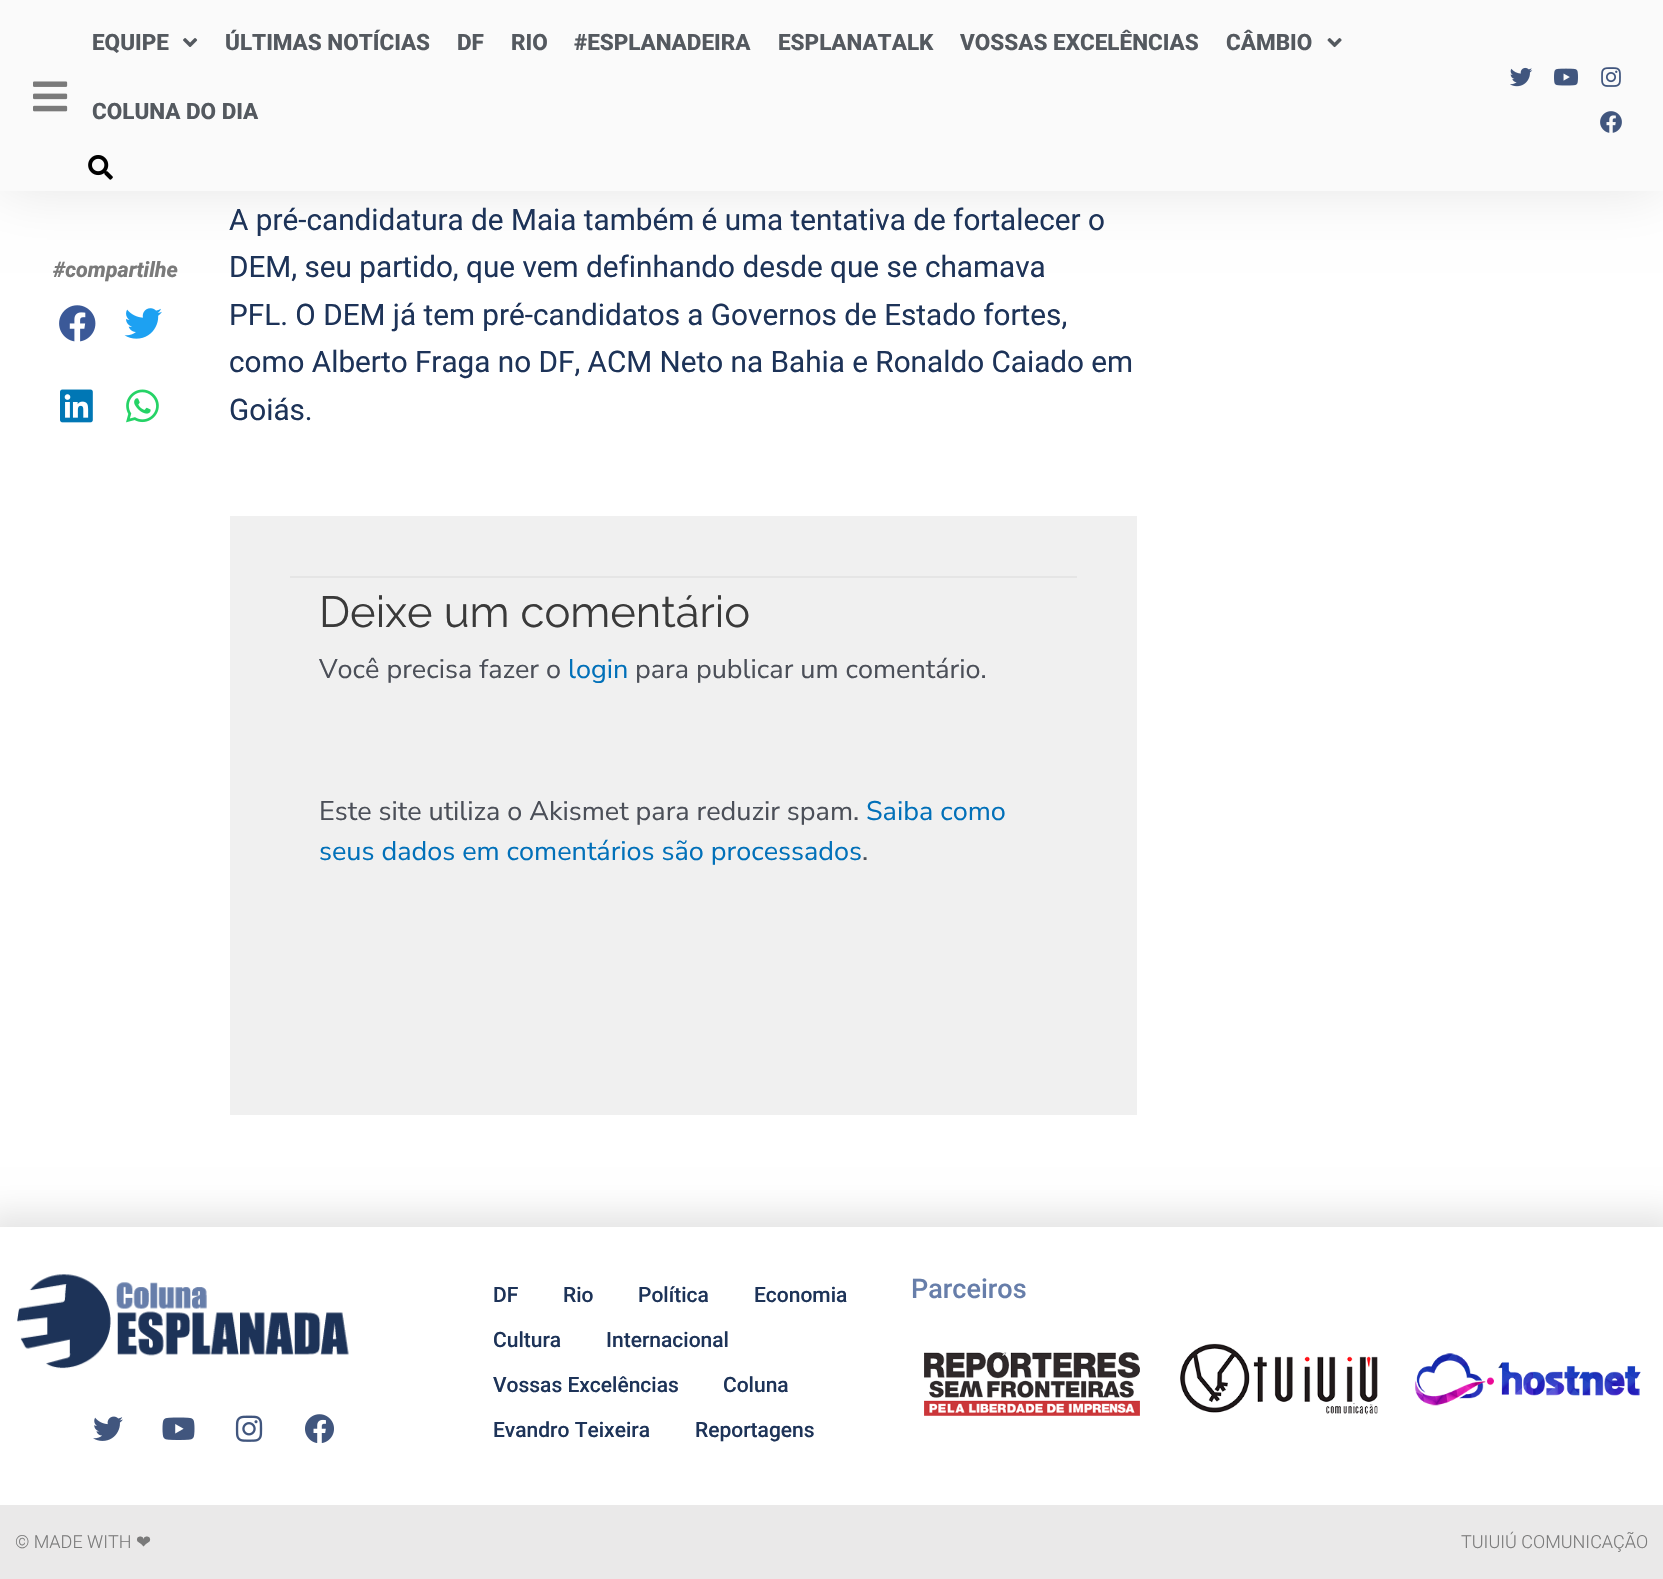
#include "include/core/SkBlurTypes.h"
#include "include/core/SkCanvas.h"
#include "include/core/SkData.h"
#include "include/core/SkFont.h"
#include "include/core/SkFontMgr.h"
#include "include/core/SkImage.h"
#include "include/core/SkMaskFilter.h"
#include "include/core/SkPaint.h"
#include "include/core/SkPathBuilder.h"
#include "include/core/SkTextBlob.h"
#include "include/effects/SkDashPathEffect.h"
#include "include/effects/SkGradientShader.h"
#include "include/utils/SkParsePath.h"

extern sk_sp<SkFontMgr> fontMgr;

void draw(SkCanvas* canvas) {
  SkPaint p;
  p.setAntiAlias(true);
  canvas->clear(SK_ColorWHITE);
  p.setColor(SkColorSetARGB(28, 1, 1, 1));
  p.setMaskFilter(SkMaskFilter::MakeBlur(kNormal_SkBlurStyle, 28.5f));
  canvas->drawRect(SkRect::MakeLTRB(0, -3, 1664, 188), p);
  p.setMaskFilter(nullptr);
  p.setColor(SkColorSetRGB(250, 250, 250));
  canvas->drawRect(SkRect::MakeLTRB(0, 0, 1663, 191), p);
  canvas->drawImageRect(SkImages::DeferredFromEncodedData(SkData::MakeFromFileName("images/1.png")), SkRect::MakeLTRB(33, 81, 68, 112), SkSamplingOptions());
  canvas->drawImageRect(SkImages::DeferredFromEncodedData(SkData::MakeFromFileName("images/2.png")), SkRect::MakeLTRB(183, 38, 198, 47), SkSamplingOptions());
  canvas->drawImageRect(SkImages::DeferredFromEncodedData(SkData::MakeFromFileName("images/3.png")), SkRect::MakeLTRB(1327, 38, 1342, 48), SkSamplingOptions());
  canvas->drawImageRect(SkImages::DeferredFromEncodedData(SkData::MakeFromFileName("images/4.png")), SkRect::MakeLTRB(88, 155, 113, 180), SkSamplingOptions());
  canvas->drawImageRect(SkImages::DeferredFromEncodedData(SkData::MakeFromFileName("images/5.png")), SkRect::MakeLTRB(1510, 67, 1533, 87), SkSamplingOptions());
  canvas->drawImageRect(SkImages::DeferredFromEncodedData(SkData::MakeFromFileName("images/6.png")), SkRect::MakeLTRB(1554, 68, 1578, 86), SkSamplingOptions());
  canvas->drawImageRect(SkImages::DeferredFromEncodedData(SkData::MakeFromFileName("images/7.png")), SkRect::MakeLTRB(1601, 67, 1621, 87), SkSamplingOptions());
  canvas->drawImageRect(SkImages::DeferredFromEncodedData(SkData::MakeFromFileName("images/8.png")), SkRect::MakeLTRB(1600, 111, 1622, 133), SkSamplingOptions());
  canvas->drawImageRect(SkImages::DeferredFromEncodedData(SkData::MakeFromFileName("images/9.png")), SkRect::MakeLTRB(59, 305, 96, 342), SkSamplingOptions());
  canvas->drawImageRect(SkImages::DeferredFromEncodedData(SkData::MakeFromFileName("images/10.png")), SkRect::MakeLTRB(124, 308, 162, 339), SkSamplingOptions());
  canvas->drawImageRect(SkImages::DeferredFromEncodedData(SkData::MakeFromFileName("images/11.png")), SkRect::MakeLTRB(60, 389, 93, 423), SkSamplingOptions());
  canvas->drawImageRect(SkImages::DeferredFromEncodedData(SkData::MakeFromFileName("images/12.png")), SkRect::MakeLTRB(126, 389, 159, 423), SkSamplingOptions());
  p.setColor(SkColorSetRGB(240, 240, 240));
  canvas->drawRect(SkRect::MakeLTRB(230, 516, 1137, 1115), p);
  p.setColor(SkColorSetRGB(229, 229, 229));
  canvas->drawRect(SkRect::MakeLTRB(290, 576, 1077, 578), p);
  canvas->save();
  canvas->clipPath(SkPathBuilder(SkPathFillType::kEvenOdd).moveTo(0, 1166).lineTo(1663, 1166).lineTo(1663, 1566).lineTo(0, 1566).close().moveTo(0, 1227).lineTo(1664, 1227).lineTo(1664, 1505).lineTo(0, 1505).close().detach(), true);
  p.setColor(SkColorSetARGB(26, 0, 0, 0));
  p.setMaskFilter(SkMaskFilter::MakeBlur(kNormal_SkBlurStyle, 15));
  canvas->drawRect(SkRect::MakeLTRB(-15, 1212, 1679, 1520), p);
  p.setMaskFilter(nullptr);
  canvas->restore();
  canvas->drawImageRect(SkImages::DeferredFromEncodedData(SkData::MakeFromFileName("images/13.png")), SkRect::MakeLTRB(17, 1274, 349, 1369), SkSamplingOptions());
  canvas->drawImageRect(SkImages::DeferredFromEncodedData(SkData::MakeFromFileName("images/14.png")), SkRect::MakeLTRB(93, 1416, 123, 1441), SkSamplingOptions());
  canvas->drawImageRect(SkImages::DeferredFromEncodedData(SkData::MakeFromFileName("images/15.png")), SkRect::MakeLTRB(162, 1417, 195, 1440), SkSamplingOptions());
  canvas->drawImageRect(SkImages::DeferredFromEncodedData(SkData::MakeFromFileName("images/16.png")), SkRect::MakeLTRB(235, 1415, 263, 1442), SkSamplingOptions());
  canvas->drawImageRect(SkImages::DeferredFromEncodedData(SkData::MakeFromFileName("images/17.png")), SkRect::MakeLTRB(305, 1414, 334, 1443), SkSamplingOptions());
  canvas->drawImageRect(SkImages::DeferredFromEncodedData(SkData::MakeFromFileName("images/18.png")), SkRect::MakeLTRB(924, 1352, 1140, 1416), SkSamplingOptions());
  canvas->drawImageRect(SkImages::DeferredFromEncodedData(SkData::MakeFromFileName("images/19.png")), SkRect::MakeLTRB(1180, 1343, 1378, 1415), SkSamplingOptions());
  canvas->drawImageRect(SkImages::DeferredFromEncodedData(SkData::MakeFromFileName("images/20.png")), SkRect::MakeLTRB(1415, 1353, 1641, 1406), SkSamplingOptions());
  p.setColor(SkColorSetRGB(234, 233, 233));
  canvas->drawRect(SkRect::MakeLTRB(0, 1505, 1663, 1579), p);
  SkFont font1(fontMgr->matchFamilyStyle("Roboto", SkFontStyle(800, SkFontStyle::kNormal_Width, SkFontStyle::kUpright_Slant)), 22.5f);
  font1.setSubpixel(true);
  p.setColor(SkColorSetRGB(84, 89, 95));
  canvas->drawString("EQUIPE", 92, 50, font1, p);
  canvas->drawString("ÚLTIMAS NOTÍCIAS", 225, 50, font1, p);
  canvas->drawString("DF", 457, 50, font1, p);
  canvas->drawString("RIO", 511, 50, font1, p);
  canvas->drawString("#ESPLANADEIRA", 574, 50, font1, p);
  canvas->drawString("ESPLANATALK", 778, 50, font1, p);
  canvas->drawString("VOSSAS EXCELÊNCIAS", 960, 50, font1, p);
  canvas->drawString("CÂMBIO", 1226, 50, font1, p);
  canvas->drawString("COLUNA DO DIA", 92, 119, font1, p);
  SkFont font2(fontMgr->matchFamilyStyle("Roboto", SkFontStyle(800, SkFontStyle::kNormal_Width, SkFontStyle::kItalic_Slant)), 21.5f);
  font2.setSubpixel(true);
  p.setColor(SkColorSetRGB(122, 122, 122));
  canvas->drawString("#compartilhe", 53, 277, font2, p);
  SkFont font3(fontMgr->matchFamilyStyle("Roboto", SkFontStyle::Normal()), 29.7f);
  font3.setSubpixel(true);
  p.setColor(SkColorSetRGB(29, 51, 88));
  canvas->drawString("A pré-candidatura de Maia também é uma tentativa de fortalecer o", 229, 230, font3, p);
  canvas->drawString("DEM, seu partido, que vem definhando desde que se chamava", 229, 277, font3, p);
  canvas->drawString("PFL. O DEM já tem pré-candidatos a Governos de Estado fortes,", 229, 325, font3, p);
  canvas->drawString("como Alberto Fraga no DF, ACM Neto na Bahia e Ronaldo Caiado em", 229, 372, font3, p);
  canvas->drawString("Goiás.", 229, 420, font3, p);
  SkFont font4(fontMgr->matchFamilyStyle("Raleway", SkFontStyle::Normal()), 43.5f);
  font4.setSubpixel(true);
  p.setColor(SkColorSetRGB(58, 58, 58));
  canvas->drawString("Deixe um comentário", 319, 627, font4, p);
  SkFont font5(fontMgr->matchFamilyStyle("Nunito Sans", SkFontStyle(200, SkFontStyle::kNormal_Width, SkFontStyle::kUpright_Slant)), 27);
  font5.setSubpixel(true);
  p.setColor(SkColorSetRGB(75, 79, 88));
  canvas->drawString("Você precisa fazer o", 319, 678, font5, p);
  p.setColor(SkColorSetRGB(1, 112, 185));
  canvas->drawString("login", 568, 678, font5, p);
  p.setColor(SkColorSetRGB(75, 79, 88));
  canvas->drawString("para publicar um comentário.", 635, 678, font5, p);
  canvas->drawString("Este site utiliza o Akismet para reduzir spam.", 319, 820, font5, p);
  p.setColor(SkColorSetRGB(1, 112, 185));
  canvas->drawString("Saiba como", 866, 820, font5, p);
  canvas->drawString("seus dados em comentários são processados", 319, 860, font5, p);
  p.setColor(SkColorSetRGB(75, 79, 88));
  canvas->drawString(".", 862, 860, font5, p);
  SkFont font6(fontMgr->matchFamilyStyle("Roboto", SkFontStyle(500, SkFontStyle::kNormal_Width, SkFontStyle::kUpright_Slant)), 21);
  font6.setSubpixel(true);
  p.setColor(SkColorSetRGB(29, 51, 88));
  canvas->drawString("DF", 493, 1302, font6, p);
  canvas->drawString("Rio", 563, 1302, font6, p);
  canvas->drawString("Política", 638, 1302, font6, p);
  canvas->drawString("Economia", 754, 1302, font6, p);
  canvas->drawString("Cultura", 493, 1347, font6, p);
  canvas->drawString("Internacional", 606, 1347, font6, p);
  canvas->drawString("Vossas Excelências", 493, 1392, font6, p);
  canvas->drawString("Coluna", 723, 1392, font6, p);
  canvas->drawString("Evandro Teixeira", 493, 1437, font6, p);
  canvas->drawString("Reportagens", 695, 1437, font6, p);
  SkFont font7(fontMgr->matchFamilyStyle("Roboto", SkFontStyle(500, SkFontStyle::kNormal_Width, SkFontStyle::kUpright_Slant)), 27);
  font7.setSubpixel(true);
  p.setColor(SkColorSetRGB(103, 126, 170));
  canvas->drawString("Parceiros", 911, 1298, font7, p);
  SkFont font8(fontMgr->matchFamilyStyle("Roboto", SkFontStyle(300, SkFontStyle::kNormal_Width, SkFontStyle::kUpright_Slant)), 18);
  font8.setSubpixel(true);
  p.setColor(SkColorSetRGB(122, 122, 122));
  canvas->drawString("© MADE WITH", 15, 1548, font8, p);
  SkFont font9(fontMgr->matchFamilyStyle("DejaVu Sans", SkFontStyle::Normal()), 18);
  font9.setSubpixel(true);
  canvas->drawString("❤", 136, 1548, font9, p);
  canvas->drawString("TUIUIÚ COMUNICAÇÃO", 1461, 1548, font8, p);
}
